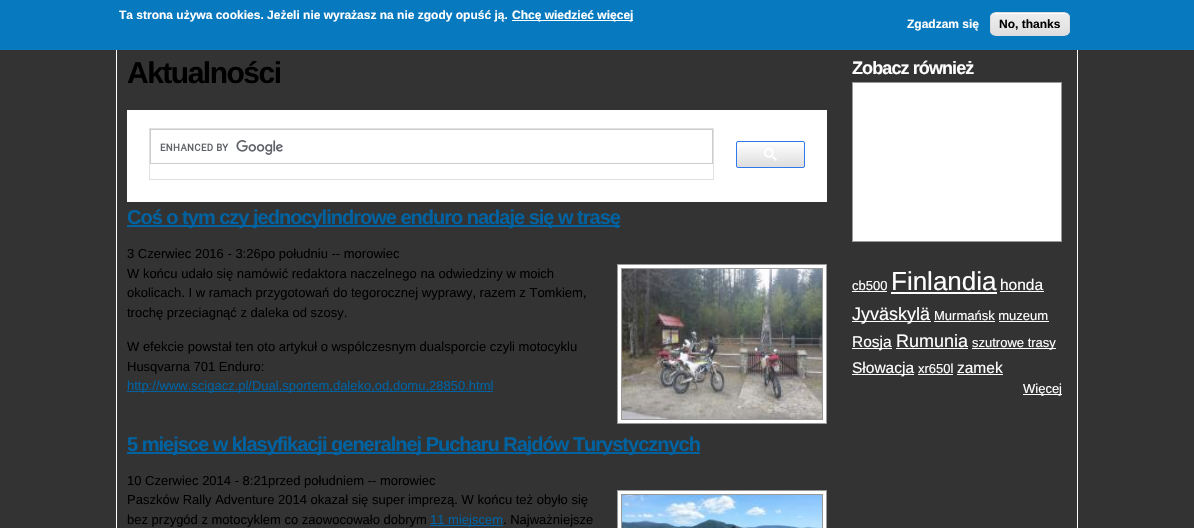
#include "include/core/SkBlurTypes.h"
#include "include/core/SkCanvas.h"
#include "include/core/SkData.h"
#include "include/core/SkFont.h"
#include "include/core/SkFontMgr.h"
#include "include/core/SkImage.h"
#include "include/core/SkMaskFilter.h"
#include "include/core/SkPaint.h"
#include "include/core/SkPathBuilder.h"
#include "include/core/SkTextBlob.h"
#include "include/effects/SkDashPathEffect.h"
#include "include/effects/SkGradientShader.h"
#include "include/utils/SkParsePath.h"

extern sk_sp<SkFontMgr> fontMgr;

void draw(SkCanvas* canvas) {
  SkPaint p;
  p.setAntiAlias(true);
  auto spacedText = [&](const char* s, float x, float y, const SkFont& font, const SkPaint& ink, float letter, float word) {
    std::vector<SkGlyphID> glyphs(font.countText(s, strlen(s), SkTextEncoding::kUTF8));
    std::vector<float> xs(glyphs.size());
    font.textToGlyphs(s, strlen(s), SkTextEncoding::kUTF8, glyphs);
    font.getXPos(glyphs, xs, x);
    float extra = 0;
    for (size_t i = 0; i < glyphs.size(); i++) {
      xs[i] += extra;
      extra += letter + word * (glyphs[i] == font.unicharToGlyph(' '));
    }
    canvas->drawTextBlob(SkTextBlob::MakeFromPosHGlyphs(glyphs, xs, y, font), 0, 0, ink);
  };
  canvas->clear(SkColorSetRGB(51, 51, 51));
  p.setColor(SkColorSetRGB(7, 121, 191));
  canvas->drawRect(SkRect::MakeLTRB(0, 0, 1194, 50), p);
  p.setColor(SK_ColorWHITE);
  canvas->drawRect(SkRect::MakeLTRB(512, 20, 633, 21), p);
  canvas->save();
  canvas->clipPath(SkPathBuilder().moveTo(996, 12).lineTo(1064, 12).cubicTo(1067.5f, 12, 1070, 14.5f, 1070, 18).lineTo(1070, 30).cubicTo(1070, 33.5f, 1067.5f, 36, 1064, 36).lineTo(996, 36).cubicTo(992.5f, 36, 990, 33.5f, 990, 30).lineTo(990, 18).cubicTo(990, 14.5f, 992.5f, 12, 996, 12).close().detach(), true);
  {
    const SkColor colors[] = {SkColorSetRGB(237, 237, 237), SkColorSetRGB(223, 223, 223)};
    const float stops[] = {0.05f, 1};
    const SkPoint ends[] = {{1030, 13}, {1030, 35}};
    p.setShader(SkGradientShader::MakeLinear(ends, colors, stops, 2, SkTileMode::kClamp));
    p.setAlpha(255);
  }
  canvas->drawRect(SkRect::MakeLTRB(990, 13, 1070, 35), p);
  canvas->restore();
  p.setShader(nullptr);
  p.setColor(SK_ColorWHITE);
  canvas->drawPath(SkPathBuilder().moveTo(996, 14).lineTo(1064, 14).cubicTo(1067, 14, 1069, 16, 1069, 19).cubicTo(1069, 10, 1058, 13, 1053, 13).lineTo(1007, 13).cubicTo(1002, 13, 991, 10, 991, 19).cubicTo(991, 16, 993, 14, 996, 14).close().detach(), p);
  p.setStyle(SkPaint::kStroke_Style);
  p.setStrokeWidth(1);
  p.setColor(SkColorSetRGB(220, 220, 220));
  canvas->drawRoundRect(SkRect::MakeLTRB(990.5f, 12.5f, 1069.5f, 35.5f), 5.5f, 5.5f, p);
  p.setStyle(SkPaint::kFill_Style);
  p.setColor(SK_ColorWHITE);
  canvas->drawRect(SkRect::MakeLTRB(1077, 50, 1078, 528), p);
  canvas->drawRect(SkRect::MakeLTRB(116, 50, 117, 528), p);
  canvas->drawRect(SkRect::MakeLTRB(127, 110, 827, 202), p);
  p.setStyle(SkPaint::kStroke_Style);
  p.setColor(SkColorSetRGB(223, 225, 229));
  canvas->drawRect(SkRect::MakeLTRB(149.5f, 128.5f, 713.5f, 179.5f), p);
  p.setStyle(SkPaint::kFill_Style);
  p.setColor(SkColorSetRGB(204, 204, 204));
  canvas->drawRect(SkRect::MakeLTRB(150, 129, 713, 130), p);
  canvas->drawRect(SkRect::MakeLTRB(712, 129, 713, 164), p);
  canvas->drawRect(SkRect::MakeLTRB(150, 163, 713, 164), p);
  canvas->drawRect(SkRect::MakeLTRB(150, 129, 151, 164), p);
  canvas->drawImageRect(SkImages::DeferredFromEncodedData(SkData::MakeFromFileName("images/1.png")), SkRect::MakeLTRB(160, 140, 283, 155), SkSamplingOptions());
  canvas->save();
  canvas->clipPath(SkPathBuilder().moveTo(738, 141).lineTo(803, 141).cubicTo(804, 141, 805, 142, 805, 143).lineTo(805, 166).cubicTo(805, 167, 804, 168, 803, 168).lineTo(738, 168).cubicTo(737, 168, 736, 167, 736, 166).lineTo(736, 143).cubicTo(736, 142, 737, 141, 738, 141).close().detach(), true);
  {
    const SkColor colors[] = {SK_ColorWHITE, SkColorSetRGB(221, 221, 221)};
    const float stops[] = {0, 1};
    const SkPoint ends[] = {{737, 142}, {737, 167}};
    p.setShader(SkGradientShader::MakeLinear(ends, colors, stops, 2, SkTileMode::kClamp));
    p.setAlpha(255);
  }
  canvas->drawRect(SkRect::MakeLTRB(736, 142, 805, 167), p);
  canvas->restore();
  p.setStyle(SkPaint::kStroke_Style);
  p.setShader(nullptr);
  p.setColor(SkColorSetRGB(48, 121, 237));
  canvas->drawRoundRect(SkRect::MakeLTRB(736.5f, 141.5f, 804.5f, 167.5f), 1.5f, 1.5f, p);
  canvas->drawImageRect(SkImages::DeferredFromEncodedData(SkData::MakeFromFileName("images/2.png")), SkRect::MakeLTRB(764, 148, 777, 161), SkSamplingOptions());
  p.setStyle(SkPaint::kFill_Style);
  p.setColor(SkColorSetRGB(0, 98, 160));
  canvas->drawRect(SkRect::MakeLTRB(127, 225, 620, 227), p);
  canvas->drawRect(SkRect::MakeLTRB(127, 391, 493, 392), p);
  p.setColor(SK_ColorWHITE);
  canvas->drawRect(SkRect::MakeLTRB(617.5f, 264.5f, 826.5f, 423.5f), p);
  p.setStyle(SkPaint::kStroke_Style);
  p.setColor(SkColorSetRGB(153, 153, 153));
  canvas->drawRect(SkRect::MakeLTRB(617.5f, 264.5f, 826.5f, 423.5f), p);
  canvas->drawRect(SkRect::MakeLTRB(621.5f, 268.5f, 822.5f, 419.5f), p);
  canvas->drawImageRect(SkImages::DeferredFromEncodedData(SkData::MakeFromFileName("images/3.png")), SkRect::MakeLTRB(622, 269, 822, 419), SkSamplingOptions());
  p.setStyle(SkPaint::kFill_Style);
  p.setColor(SkColorSetRGB(0, 98, 160));
  canvas->drawRect(SkRect::MakeLTRB(127, 452, 700, 454), p);
  canvas->drawRect(SkRect::MakeLTRB(430, 525, 503, 526), p);
  p.setColor(SK_ColorWHITE);
  canvas->drawRect(SkRect::MakeLTRB(617.5f, 490.5f, 826.5f, 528.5f), p);
  p.setStyle(SkPaint::kStroke_Style);
  p.setColor(SkColorSetRGB(153, 153, 153));
  canvas->drawRect(SkRect::MakeLTRB(617.5f, 490.5f, 826.5f, 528.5f), p);
  canvas->drawRect(SkRect::MakeLTRB(621.5f, 494.5f, 822.5f, 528.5f), p);
  canvas->drawImageRect(SkImages::DeferredFromEncodedData(SkData::MakeFromFileName("images/4.png")), SkRect::MakeLTRB(622, 495, 822, 528), SkSamplingOptions());
  p.setStyle(SkPaint::kFill_Style);
  p.setColor(SK_ColorWHITE);
  canvas->drawRect(SkRect::MakeLTRB(852.5f, 82.5f, 1061.5f, 241.5f), p);
  p.setStyle(SkPaint::kStroke_Style);
  p.setColor(SkColorSetRGB(153, 153, 153));
  canvas->drawRect(SkRect::MakeLTRB(852.5f, 82.5f, 1061.5f, 241.5f), p);
  p.setStyle(SkPaint::kFill_Style);
  p.setColor(SK_ColorWHITE);
  canvas->drawRect(SkRect::MakeLTRB(852, 291, 887, 292), p);
  canvas->drawRect(SkRect::MakeLTRB(891, 292, 997, 294), p);
  canvas->drawRect(SkRect::MakeLTRB(1000, 291, 1044, 292), p);
  canvas->drawRect(SkRect::MakeLTRB(852, 321, 931, 322), p);
  canvas->drawRect(SkRect::MakeLTRB(934, 321, 995, 322), p);
  canvas->drawRect(SkRect::MakeLTRB(999, 321, 1049, 322), p);
  canvas->drawRect(SkRect::MakeLTRB(852, 348, 892, 349), p);
  canvas->drawRect(SkRect::MakeLTRB(896, 348, 968, 349), p);
  canvas->drawRect(SkRect::MakeLTRB(972, 348, 1056, 349), p);
  canvas->drawRect(SkRect::MakeLTRB(852, 374, 914, 375), p);
  canvas->drawRect(SkRect::MakeLTRB(918, 374, 953, 375), p);
  canvas->drawRect(SkRect::MakeLTRB(957, 374, 1003, 375), p);
  canvas->drawRect(SkRect::MakeLTRB(1023, 394, 1062, 395), p);
  SkFont font1(fontMgr->matchFamilyStyle("Liberation Sans", SkFontStyle::Bold()), 12);
  font1.setSubpixel(true);
  canvas->drawString("Ta strona używa cookies. Jeżeli nie wyrażasz na nie zgody opuść ją.", 119, 19, font1, p);
  canvas->drawString("Chcę wiedzieć więcej", 512, 19, font1, p);
  canvas->drawString("Zgadzam się", 907, 28, font1, p);
  p.setColor(SK_ColorBLACK);
  canvas->drawString("No, thanks", 999, 28, font1, p);
  SkFont font2(fontMgr->matchFamilyStyle("Liberation Sans", SkFontStyle::Bold()), 30);
  font2.setSubpixel(true);
  spacedText("Aktualności", 127, 83, font2, p, -1.5f, 0);
  SkFont font3(fontMgr->matchFamilyStyle("Liberation Sans", SkFontStyle::Bold()), 20);
  font3.setSubpixel(true);
  p.setColor(SkColorSetRGB(0, 98, 160));
  spacedText("Coś o tym czy jednocylindrowe enduro nadaje się w trasę", 127, 224, font3, p, -1, 0);
  SkFont font4(fontMgr->matchFamilyStyle("Liberation Sans", SkFontStyle::Normal()), 13);
  font4.setSubpixel(true);
  p.setColor(SK_ColorBLACK);
  canvas->drawString("3 Czerwiec 2016 - 3:26po południu -- morowiec", 127, 258, font4, p);
  canvas->drawString("W końcu udało się namówić redaktora naczelnego na odwiedziny w moich", 127, 278, font4, p);
  canvas->drawString("okolicach. I w ramach przygotowań do tegorocznej wyprawy, razem z Tomkiem,", 127, 297, font4, p);
  canvas->drawString("trochę przeciagnąć z daleka od szosy.", 127, 317, font4, p);
  canvas->drawString("W efekcie powstał ten oto artykuł o wspólczesnym dualsporcie czyli motocyklu", 127, 351, font4, p);
  canvas->drawString("Husqvarna 701 Enduro:", 127, 371, font4, p);
  p.setColor(SkColorSetRGB(0, 98, 160));
  canvas->drawString("http://www.scigacz.pl/Dual,sportem,daleko,od,domu,28850.html", 127, 390, font4, p);
  spacedText("5 miejsce w klasyfikacji generalnej Pucharu Rajdów Turystycznych", 127, 451, font3, p, -1, 0);
  p.setColor(SK_ColorBLACK);
  canvas->drawString("10 Czerwiec 2014 - 8:21przed południem -- morowiec", 127, 485, font4, p);
  canvas->drawString("Paszków Rally Adventure 2014 okazał się super imprezą. W końcu też obyło się", 127, 504, font4, p);
  canvas->drawString("bez przygód z motocyklem co zaowocowało dobrym", 127, 524, font4, p);
  p.setColor(SkColorSetRGB(0, 98, 160));
  canvas->drawString("11 miejscem", 430, 524, font4, p);
  p.setColor(SK_ColorBLACK);
  canvas->drawString(". Najważniejsze", 503, 524, font4, p);
  SkFont font5(fontMgr->matchFamilyStyle("Liberation Sans", SkFontStyle::Bold()), 18);
  font5.setSubpixel(true);
  p.setColor(SK_ColorWHITE);
  spacedText("Zobacz również", 852, 74, font5, p, -0.9f, 0);
  canvas->drawString("cb500", 852, 290, font4, p);
  SkFont font6(fontMgr->matchFamilyStyle("Liberation Sans", SkFontStyle::Normal()), 26);
  font6.setSubpixel(true);
  canvas->drawString("Finlandia", 891, 290, font6, p);
  SkFont font7(fontMgr->matchFamilyStyle("Liberation Sans", SkFontStyle::Normal()), 15.5f);
  font7.setSubpixel(true);
  canvas->drawString("honda", 1000, 290, font7, p);
  SkFont font8(fontMgr->matchFamilyStyle("Liberation Sans", SkFontStyle::Normal()), 18);
  font8.setSubpixel(true);
  canvas->drawString("Jyväskylä", 852, 320, font8, p);
  canvas->drawString("Murmańsk muzeum", 934, 320, font4, p);
  canvas->drawString("Rosja", 852, 347, font7, p);
  canvas->drawString("Rumunia", 896, 347, font8, p);
  canvas->drawString("szutrowe trasy", 972, 347, font4, p);
  canvas->drawString("Słowacja", 852, 373, font7, p);
  canvas->drawString("xr650l", 918, 373, font4, p);
  canvas->drawString("zamek", 957, 373, font7, p);
  canvas->drawString("Więcej", 1023, 393, font4, p);
}
